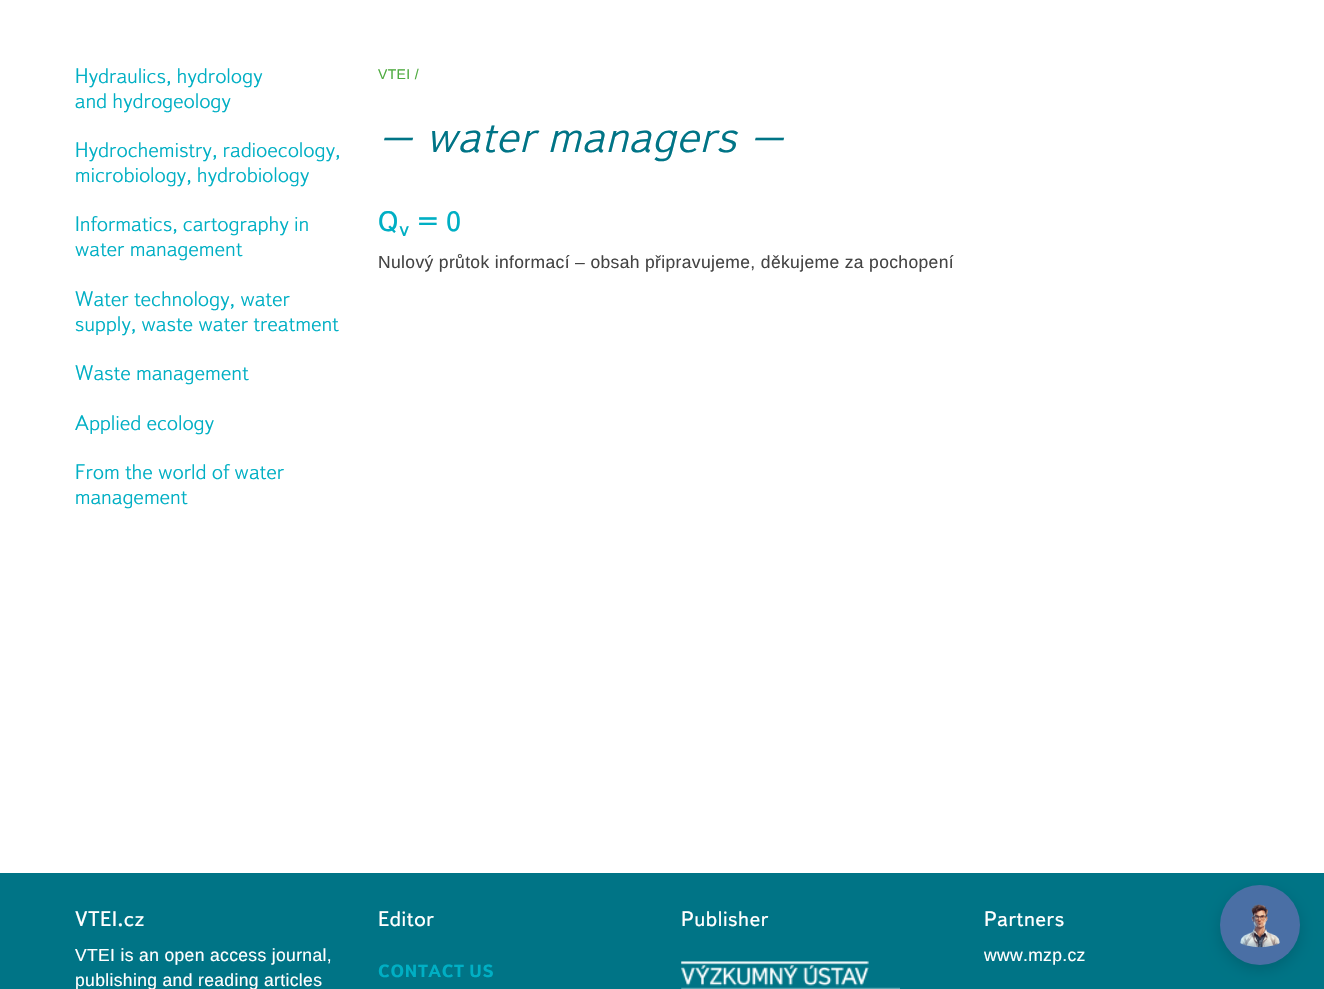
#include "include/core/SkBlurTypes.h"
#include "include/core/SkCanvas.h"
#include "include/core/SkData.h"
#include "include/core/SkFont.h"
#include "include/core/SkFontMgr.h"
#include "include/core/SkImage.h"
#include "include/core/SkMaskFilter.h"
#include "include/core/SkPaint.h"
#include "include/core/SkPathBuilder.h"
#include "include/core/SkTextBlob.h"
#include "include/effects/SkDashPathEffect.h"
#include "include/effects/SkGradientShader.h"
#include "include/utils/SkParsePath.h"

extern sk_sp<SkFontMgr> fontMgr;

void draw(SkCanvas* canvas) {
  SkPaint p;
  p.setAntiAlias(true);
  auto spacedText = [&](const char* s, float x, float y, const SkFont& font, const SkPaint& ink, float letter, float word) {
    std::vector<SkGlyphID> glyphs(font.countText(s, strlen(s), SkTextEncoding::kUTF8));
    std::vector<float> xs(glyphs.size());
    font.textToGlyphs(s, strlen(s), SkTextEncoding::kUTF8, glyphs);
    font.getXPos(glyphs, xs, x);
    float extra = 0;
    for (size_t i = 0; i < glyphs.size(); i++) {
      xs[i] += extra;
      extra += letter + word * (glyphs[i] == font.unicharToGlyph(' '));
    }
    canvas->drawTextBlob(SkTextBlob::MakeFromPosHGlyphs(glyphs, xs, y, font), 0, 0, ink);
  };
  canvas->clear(SK_ColorWHITE);
  p.setColor(SkColorSetRGB(0, 116, 134));
  canvas->drawRect(SkRect::MakeLTRB(0, 873, 1324, 989), p);
  canvas->drawImageRect(SkImages::DeferredFromEncodedData(SkData::MakeFromFileName("images/1.png")), SkRect::MakeLTRB(681, 961, 900, 989), SkSamplingOptions());
  p.setColor(SkColorSetARGB(38, 0, 0, 0));
  p.setMaskFilter(SkMaskFilter::MakeBlur(kNormal_SkBlurStyle, 7.5f));
  canvas->drawRoundRect(SkRect::MakeLTRB(1220, 890, 1300, 970), 40, 40, p);
  p.setMaskFilter(nullptr);
  p.setColor(SkColorSetRGB(74, 111, 165));
  canvas->drawCircle(1260, 925, 40, p);
  canvas->drawImageRect(SkImages::DeferredFromEncodedData(SkData::MakeFromFileName("images/2.png")), SkRect::MakeLTRB(1240, 904, 1280, 948), SkSamplingOptions());
  SkFont font1(fontMgr->matchFamilyStyle("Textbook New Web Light", SkFontStyle(300, SkFontStyle::kNormal_Width, SkFontStyle::kUpright_Slant)), 21);
  font1.setSubpixel(true);
  p.setColor(SkColorSetRGB(0, 175, 196));
  spacedText("Hydraulics, hydrology", 75, 83, font1, p, 0.35f, 0);
  spacedText("and hydrogeology", 75, 108, font1, p, 0.35f, 0);
  spacedText("Hydrochemistry, radioecology,", 75, 157, font1, p, 0.35f, 0);
  spacedText("microbiology, hydrobiology", 75, 182, font1, p, 0.35f, 0);
  spacedText("Informatics, cartography in", 75, 231, font1, p, 0.35f, 0);
  spacedText("water management", 75, 256, font1, p, 0.35f, 0);
  spacedText("Water technology, water", 75, 306, font1, p, 0.35f, 0);
  spacedText("supply, waste water treatment", 75, 331, font1, p, 0.35f, 0);
  spacedText("Waste management", 75, 380, font1, p, 0.35f, 0);
  spacedText("Applied ecology", 75, 430, font1, p, 0.35f, 0);
  spacedText("From the world of water", 75, 479, font1, p, 0.35f, 0);
  spacedText("management", 75, 504, font1, p, 0.35f, 0);
  SkFont font2(fontMgr->matchFamilyStyle("Liberation Sans", SkFontStyle::Normal()), 14);
  font2.setSubpixel(true);
  p.setColor(SkColorSetRGB(78, 171, 63));
  spacedText("VTEI /", 378, 79, font2, p, 0.35f, 0);
  SkFont font3(fontMgr->matchFamilyStyle("Textbook New Web Light", SkFontStyle(300, SkFontStyle::kNormal_Width, SkFontStyle::kItalic_Slant)), 45);
  font3.setSubpixel(true);
  p.setColor(SkColorSetRGB(0, 116, 134));
  spacedText("– water managers –", 378, 152, font3, p, 1.4f, 0);
  SkFont font4(fontMgr->matchFamilyStyle("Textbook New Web", SkFontStyle::Normal()), 28);
  font4.setSubpixel(true);
  p.setColor(SkColorSetRGB(0, 175, 196));
  spacedText("Q", 378, 231, font4, p, 1, 0);
  SkFont font5(fontMgr->matchFamilyStyle("Textbook New Web", SkFontStyle::Normal()), 21);
  font5.setSubpixel(true);
  spacedText("v", 399, 236, font5, p, 1, 0);
  spacedText("= 0", 418, 231, font4, p, 1, 0);
  SkFont font6(fontMgr->matchFamilyStyle("Liberation Sans", SkFontStyle::Normal()), 17.5f);
  font6.setSubpixel(true);
  p.setColor(SkColorSetRGB(68, 68, 68));
  spacedText("Nulový průtok informací – obsah připravujeme, děkujeme za pochopení", 378, 268, font6, p, 0.35f, 0);
  p.setColor(SK_ColorWHITE);
  spacedText("VTEI.cz", 75, 926, font5, p, 0.6f, 0);
  spacedText("VTEI is an open access journal,", 75, 961, font6, p, 0.35f, 0);
  spacedText("publishing and reading articles", 75, 986, font6, p, 0.35f, 0);
  spacedText("Editor", 378, 926, font5, p, 0.6f, 0);
  SkFont font7(fontMgr->matchFamilyStyle("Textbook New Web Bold", SkFontStyle::Bold()), 17.5f);
  font7.setSubpixel(true);
  p.setColor(SkColorSetRGB(0, 175, 196));
  spacedText("CONTACT US", 378, 977, font7, p, 0.5f, 0);
  p.setColor(SK_ColorWHITE);
  spacedText("Publisher", 681, 926, font5, p, 0.6f, 0);
  spacedText("Partners", 984, 926, font5, p, 0.6f, 0);
  spacedText("www.mzp.cz", 984, 961, font6, p, 0.35f, 0);
}
